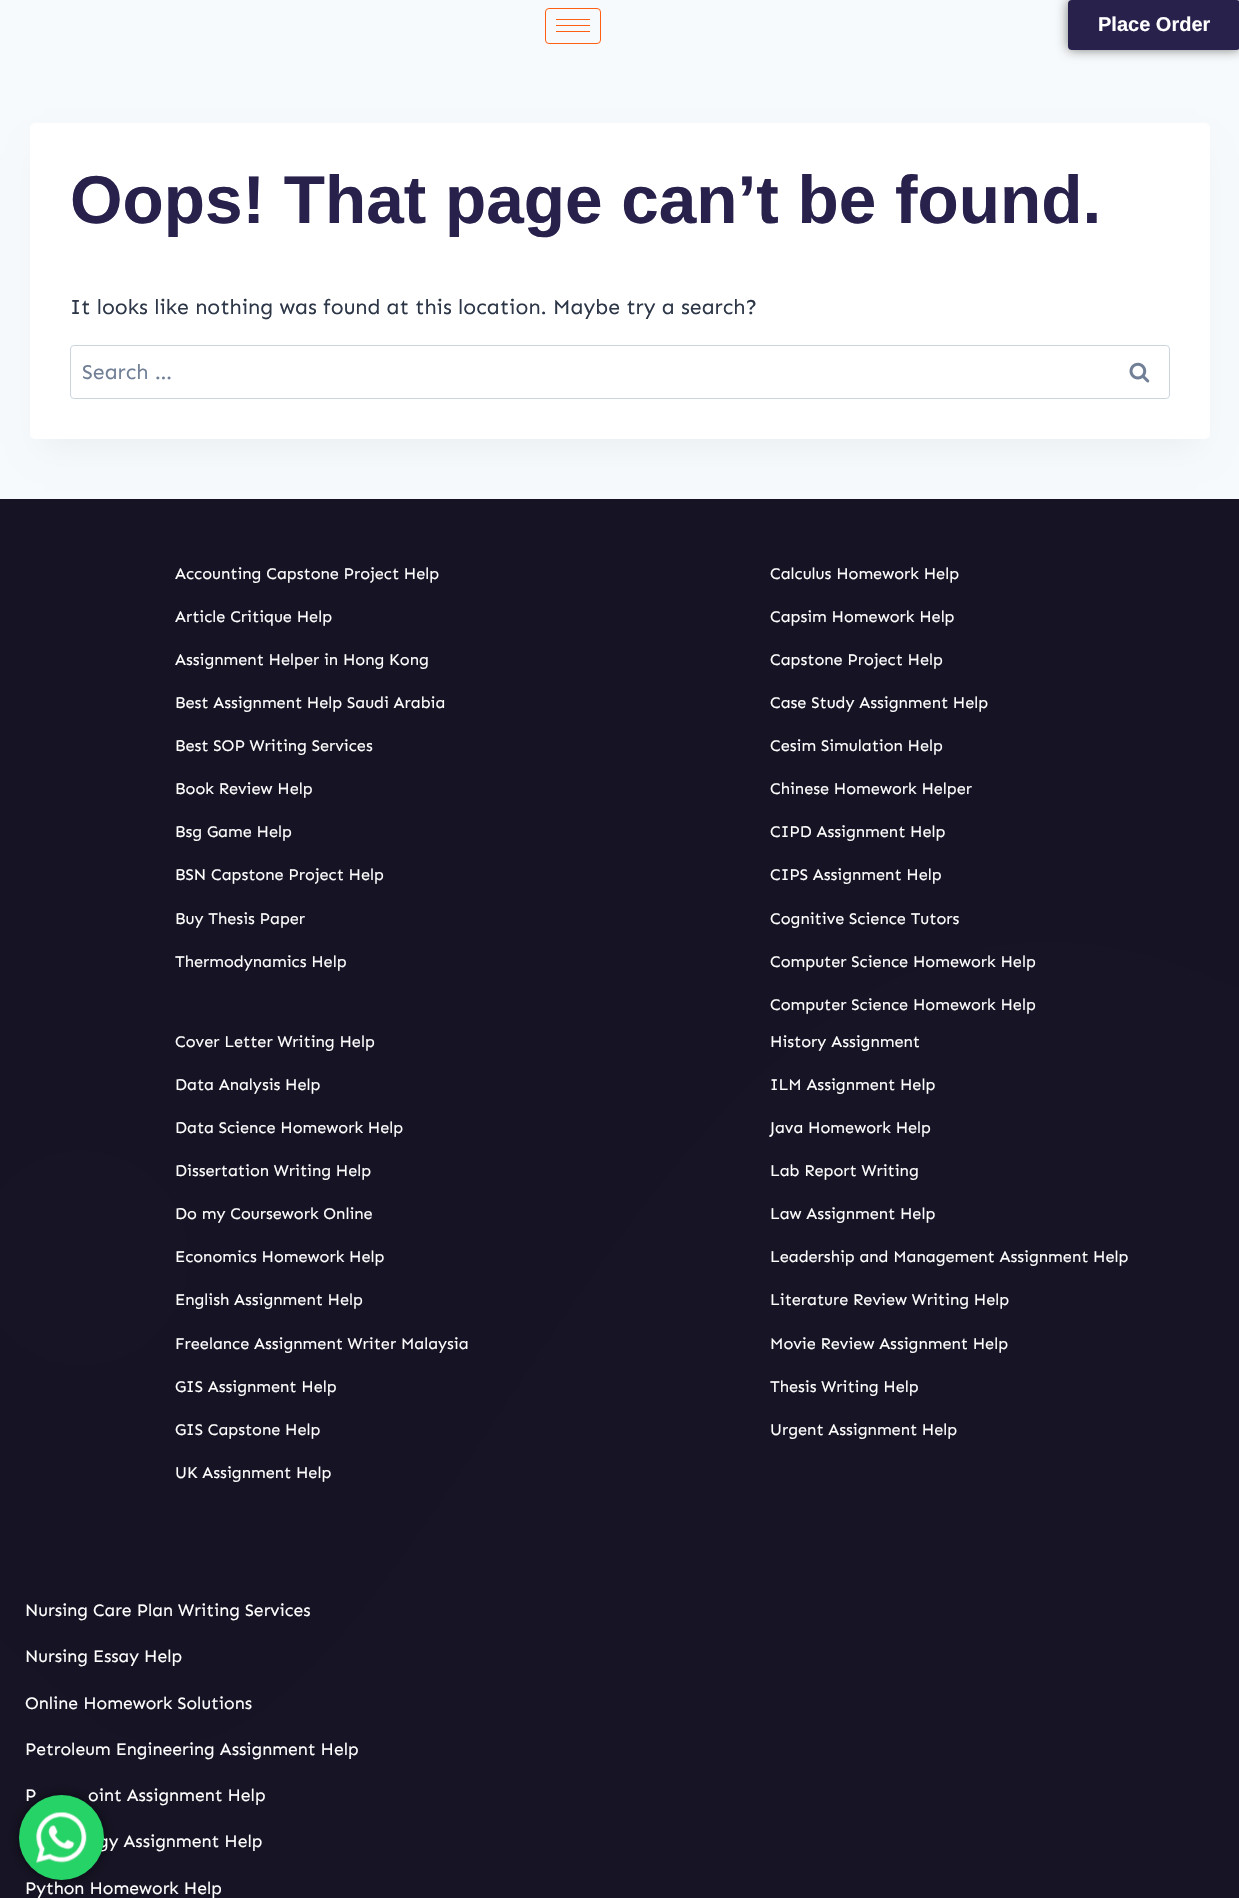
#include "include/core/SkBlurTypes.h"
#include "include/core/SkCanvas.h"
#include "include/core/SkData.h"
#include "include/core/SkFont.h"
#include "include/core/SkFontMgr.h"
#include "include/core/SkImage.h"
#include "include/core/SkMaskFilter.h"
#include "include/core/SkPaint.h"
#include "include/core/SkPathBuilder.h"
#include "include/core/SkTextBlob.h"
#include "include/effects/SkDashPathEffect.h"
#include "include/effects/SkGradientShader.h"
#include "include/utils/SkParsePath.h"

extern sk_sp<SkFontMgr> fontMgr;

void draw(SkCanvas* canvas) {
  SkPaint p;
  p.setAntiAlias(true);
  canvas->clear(SkColorSetRGB(247, 250, 252));
  p.setStyle(SkPaint::kStroke_Style);
  p.setStrokeWidth(1);
  p.setColor(SkColorSetRGB(255, 94, 19));
  canvas->drawRoundRect(SkRect::MakeLTRB(545.5f, 8.5f, 600.5f, 43.5f), 3.5f, 3.5f, p);
  p.setStyle(SkPaint::kFill_Style);
  canvas->drawRect(SkRect::MakeLTRB(556, 19, 590, 20), p);
  canvas->drawRect(SkRect::MakeLTRB(556, 25, 590, 26), p);
  canvas->drawRect(SkRect::MakeLTRB(556, 31, 590, 32), p);
  p.setColor(SkColorSetARGB(128, 0, 0, 0));
  p.setMaskFilter(SkMaskFilter::MakeBlur(kNormal_SkBlurStyle, 6));
  canvas->drawRoundRect(SkRect::MakeLTRB(1068, 0, 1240, 50), 4, 4, p);
  p.setMaskFilter(nullptr);
  p.setColor(SkColorSetRGB(40, 33, 76));
  canvas->drawRoundRect(SkRect::MakeLTRB(1068, 0, 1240, 50), 4, 4, p);
  p.setColor(SkColorSetARGB(13, 0, 0, 0));
  p.setMaskFilter(SkMaskFilter::MakeBlur(kNormal_SkBlurStyle, 15.5f));
  canvas->drawRect(SkRect::MakeLTRB(43, 154, 1198, 445), p);
  p.setMaskFilter(nullptr);
  p.setColor(SK_ColorWHITE);
  canvas->drawRoundRect(SkRect::MakeLTRB(30, 123, 1210, 439), 5, 5, p);
  p.setStyle(SkPaint::kStroke_Style);
  p.setColor(SkColorSetRGB(203, 213, 224));
  canvas->drawRoundRect(SkRect::MakeLTRB(70.5f, 345.5f, 1169.5f, 398.5f), 3.5f, 3.5f, p);
  canvas->drawImageRect(SkImages::DeferredFromEncodedData(SkData::MakeFromFileName("images/1.png")), SkRect::MakeLTRB(1129, 362, 1150, 383), SkSamplingOptions());
  p.setStyle(SkPaint::kFill_Style);
  p.setColor(SkColorSetRGB(16, 13, 31));
  canvas->drawRect(SkRect::MakeLTRB(0, 499, 1239, 1898), p);
  canvas->drawImageRect(SkImages::DeferredFromEncodedData(SkData::MakeFromFileName("images/2.png")), SkRect::MakeLTRB(0, 499, 1239, 1898), SkSamplingOptions());
  p.setColor(SkColorSetARGB(128, 0, 0, 0));
  p.setMaskFilter(SkMaskFilter::MakeBlur(kNormal_SkBlurStyle, 7));
  canvas->drawRoundRect(SkRect::MakeLTRB(19, 1795, 104, 1880), 42.5f, 42.5f, p);
  p.setMaskFilter(nullptr);
  SkFont font1(fontMgr->matchFamilyStyle("Liberation Sans", SkFontStyle::Bold()), 20);
  font1.setSubpixel(true);
  p.setColor(SK_ColorWHITE);
  canvas->drawString("Place Order", 1098, 31, font1, p);
  SkFont font2(fontMgr->matchFamilyStyle("Liberation Sans", SkFontStyle::Bold()), 67.5f);
  font2.setSubpixel(true);
  p.setColor(SkColorSetRGB(40, 33, 76));
  canvas->drawString("Oops! That page can’t be found.", 70, 223, font2, p);
  SkFont font3(fontMgr->matchFamilyStyle("Sen", SkFontStyle::Normal()), 21.25f);
  font3.setSubpixel(true);
  p.setColor(SkColorSetRGB(45, 55, 72));
  canvas->drawString("It looks like nothing was found at this location. Maybe try a search?", 70, 314, font3, p);
  p.setColor(SkColorSetRGB(113, 128, 150));
  canvas->drawString("Search …", 82, 379, font3, p);
  SkFont font4(fontMgr->matchFamilyStyle("Sen", SkFontStyle::Normal()), 16.25f);
  font4.setSubpixel(true);
  p.setColor(SK_ColorWHITE);
  canvas->drawString("Accounting Capstone Project Help", 175, 579, font4, p);
  canvas->drawString("Article Critique Help", 175, 622, font4, p);
  canvas->drawString("Assignment Helper in Hong Kong", 175, 665, font4, p);
  canvas->drawString("Best Assignment Help Saudi Arabia", 175, 708, font4, p);
  canvas->drawString("Best SOP Writing Services", 175, 751, font4, p);
  canvas->drawString("Book Review Help", 175, 794, font4, p);
  canvas->drawString("Bsg Game Help", 175, 837, font4, p);
  canvas->drawString("BSN Capstone Project Help", 175, 880, font4, p);
  canvas->drawString("Buy Thesis Paper", 175, 924, font4, p);
  canvas->drawString("Thermodynamics Help", 175, 967, font4, p);
  canvas->drawString("Calculus Homework Help", 770, 579, font4, p);
  canvas->drawString("Capsim Homework Help", 770, 622, font4, p);
  canvas->drawString("Capstone Project Help", 770, 665, font4, p);
  canvas->drawString("Case Study Assignment Help", 770, 708, font4, p);
  canvas->drawString("Cesim Simulation Help", 770, 751, font4, p);
  canvas->drawString("Chinese Homework Helper", 770, 794, font4, p);
  canvas->drawString("CIPD Assignment Help", 770, 837, font4, p);
  canvas->drawString("CIPS Assignment Help", 770, 880, font4, p);
  canvas->drawString("Cognitive Science Tutors", 770, 924, font4, p);
  canvas->drawString("Computer Science Homework Help", 770, 967, font4, p);
  canvas->drawString("Computer Science Homework Help", 770, 1010, font4, p);
  canvas->drawString("Cover Letter Writing Help", 175, 1047, font4, p);
  canvas->drawString("Data Analysis Help", 175, 1090, font4, p);
  canvas->drawString("Data Science Homework Help", 175, 1133, font4, p);
  canvas->drawString("Dissertation Writing Help", 175, 1176, font4, p);
  canvas->drawString("Do my Coursework Online", 175, 1219, font4, p);
  canvas->drawString("Economics Homework Help", 175, 1262, font4, p);
  canvas->drawString("English Assignment Help", 175, 1305, font4, p);
  canvas->drawString("Freelance Assignment Writer Malaysia", 175, 1349, font4, p);
  canvas->drawString("GIS Assignment Help", 175, 1392, font4, p);
  canvas->drawString("GIS Capstone Help", 175, 1435, font4, p);
  canvas->drawString("UK Assignment Help", 175, 1478, font4, p);
  canvas->drawString("History Assignment", 770, 1047, font4, p);
  canvas->drawString("ILM Assignment Help", 770, 1090, font4, p);
  canvas->drawString("Java Homework Help", 770, 1133, font4, p);
  canvas->drawString("Lab Report Writing", 770, 1176, font4, p);
  canvas->drawString("Law Assignment Help", 770, 1219, font4, p);
  canvas->drawString("Leadership and Management Assignment Help", 770, 1262, font4, p);
  canvas->drawString("Literature Review Writing Help", 770, 1305, font4, p);
  canvas->drawString("Movie Review Assignment Help", 770, 1349, font4, p);
  canvas->drawString("Thesis Writing Help", 770, 1392, font4, p);
  canvas->drawString("Urgent Assignment Help", 770, 1435, font4, p);
  SkFont font5(fontMgr->matchFamilyStyle("Sen", SkFontStyle::Normal()), 17.5f);
  font5.setSubpixel(true);
  canvas->drawString("Nursing Care Plan Writing Services", 25, 1616, font5, p);
  canvas->drawString("Nursing Essay Help", 25, 1662, font5, p);
  canvas->drawString("Online Homework Solutions", 25, 1709, font5, p);
  canvas->drawString("Petroleum Engineering Assignment Help", 25, 1755, font5, p);
  canvas->drawString("P", 25, 1801, font5, p);
  canvas->drawString("oint Assignment Help", 88, 1801, font5, p);
  canvas->drawString("gy Assignment Help", 98, 1847, font5, p);
  canvas->drawString("Python Homework Help", 25, 1894, font5, p);
  p.setColor(SkColorSetRGB(37, 211, 102));
  canvas->drawCircle(61.5f, 1837.5f, 42.5f, p);
  canvas->drawImageRect(SkImages::DeferredFromEncodedData(SkData::MakeFromFileName("images/3.png")), SkRect::MakeLTRB(36, 1812, 87, 1863), SkSamplingOptions());
}
